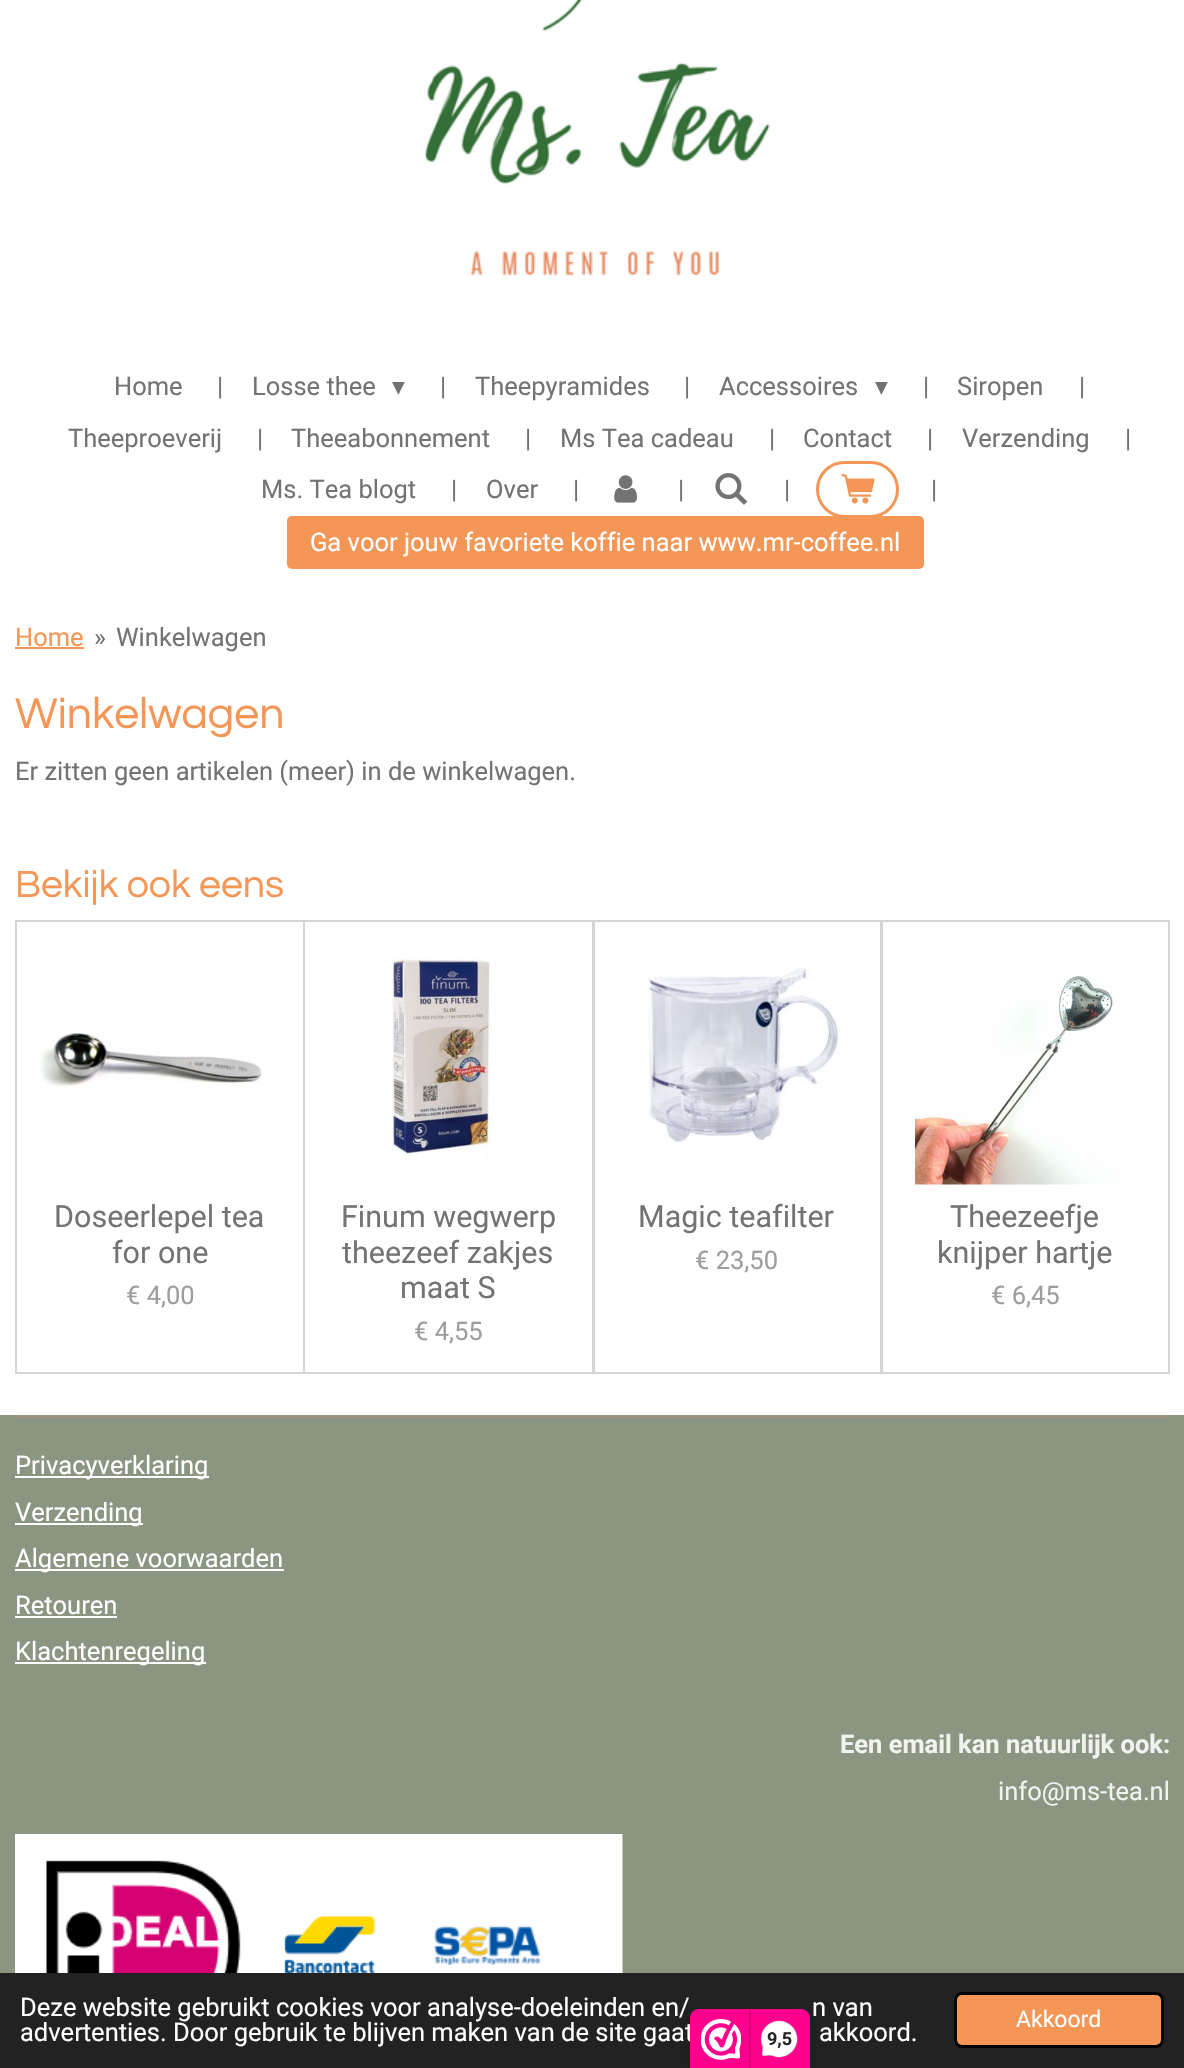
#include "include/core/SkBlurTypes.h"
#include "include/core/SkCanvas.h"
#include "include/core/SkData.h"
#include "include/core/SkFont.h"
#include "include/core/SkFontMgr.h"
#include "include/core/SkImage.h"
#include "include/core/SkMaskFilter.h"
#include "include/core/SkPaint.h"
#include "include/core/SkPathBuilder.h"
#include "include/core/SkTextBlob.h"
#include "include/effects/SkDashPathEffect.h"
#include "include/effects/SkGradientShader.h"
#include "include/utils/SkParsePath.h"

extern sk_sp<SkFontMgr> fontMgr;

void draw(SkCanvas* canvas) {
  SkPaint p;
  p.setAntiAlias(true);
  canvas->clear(SK_ColorWHITE);
  canvas->drawImageRect(SkImages::DeferredFromEncodedData(SkData::MakeFromFileName("images/1.png")), SkRect::MakeLTRB(424, 0, 770, 276), SkSamplingOptions());
  canvas->drawImageRect(SkImages::DeferredFromEncodedData(SkData::MakeFromFileName("images/2.png")), SkRect::MakeLTRB(614, 475, 637, 503), SkSamplingOptions());
  canvas->drawImageRect(SkImages::DeferredFromEncodedData(SkData::MakeFromFileName("images/3.png")), SkRect::MakeLTRB(715, 473, 748, 505), SkSamplingOptions());
  p.setStyle(SkPaint::kStroke_Style);
  p.setStrokeWidth(3);
  p.setColor(SkColorSetRGB(243, 150, 86));
  canvas->drawRoundRect(SkRect::MakeLTRB(817.5f, 462.5f, 897.5f, 516.5f), 27, 27, p);
  canvas->drawImageRect(SkImages::DeferredFromEncodedData(SkData::MakeFromFileName("images/4.png")), SkRect::MakeLTRB(841, 474, 875, 504), SkSamplingOptions());
  p.setStyle(SkPaint::kFill_Style);
  canvas->drawRoundRect(SkRect::MakeLTRB(287, 516, 924, 569), 5, 5, p);
  canvas->drawRect(SkRect::MakeLTRB(15, 647, 84, 649), p);
  p.setStyle(SkPaint::kStroke_Style);
  p.setStrokeWidth(2);
  p.setColor(SkColorSetRGB(213, 213, 213));
  canvas->drawRect(SkRect::MakeLTRB(16, 921, 304, 1373), p);
  canvas->drawImageRect(SkImages::DeferredFromEncodedData(SkData::MakeFromFileName("images/5.png")), SkRect::MakeLTRB(40, 1033, 263, 1088), SkSamplingOptions());
  canvas->drawRect(SkRect::MakeLTRB(304, 921, 593, 1373), p);
  canvas->drawImageRect(SkImages::DeferredFromEncodedData(SkData::MakeFromFileName("images/6.png")), SkRect::MakeLTRB(391, 958, 494, 1160), SkSamplingOptions());
  canvas->drawRect(SkRect::MakeLTRB(594, 921, 881, 1373), p);
  canvas->drawImageRect(SkImages::DeferredFromEncodedData(SkData::MakeFromFileName("images/7.png")), SkRect::MakeLTRB(648, 967, 841, 1145), SkSamplingOptions());
  canvas->drawRect(SkRect::MakeLTRB(882, 921, 1169, 1373), p);
  canvas->drawImageRect(SkImages::DeferredFromEncodedData(SkData::MakeFromFileName("images/8.png")), SkRect::MakeLTRB(915, 976, 1120, 1185), SkSamplingOptions());
  p.setStyle(SkPaint::kFill_Style);
  p.setColor(SkColorSetRGB(138, 149, 130));
  canvas->drawRect(SkRect::MakeLTRB(0, 1415, 1184, 1973), p);
  p.setColor(SkColorSetRGB(154, 149, 123));
  canvas->drawRect(SkRect::MakeLTRB(15, 1415, 1170, 1418), p);
  p.setColor(SK_ColorWHITE);
  canvas->drawRect(SkRect::MakeLTRB(15, 1476, 209, 1478), p);
  canvas->drawRect(SkRect::MakeLTRB(15, 1523, 143, 1525), p);
  canvas->drawRect(SkRect::MakeLTRB(15, 1569, 284, 1571), p);
  canvas->drawRect(SkRect::MakeLTRB(15, 1616, 117, 1618), p);
  canvas->drawRect(SkRect::MakeLTRB(15, 1662, 206, 1664), p);
  canvas->drawImageRect(SkImages::DeferredFromEncodedData(SkData::MakeFromFileName("images/9.png")), SkRect::MakeLTRB(15, 1834, 623, 1973), SkSamplingOptions());
  p.setColor(SkColorSetRGB(34, 34, 34));
  canvas->drawRect(SkRect::MakeLTRB(0, 1973, 1184, 2068), p);
  p.setColor(SkColorSetRGB(243, 150, 86));
  canvas->drawRoundRect(SkRect::MakeLTRB(955.5f, 1993.5f, 1162.5f, 2046.5f), 6.5f, 6.5f, p);
  p.setStyle(SkPaint::kStroke_Style);
  p.setStrokeWidth(3);
  p.setColor(SK_ColorBLACK);
  canvas->drawRoundRect(SkRect::MakeLTRB(955.5f, 1993.5f, 1162.5f, 2046.5f), 6.5f, 6.5f, p);
  p.setStyle(SkPaint::kFill_Style);
  p.setColor(SkColorSetARGB(38, 0, 0, 0));
  p.setMaskFilter(SkMaskFilter::MakeBlur(kNormal_SkBlurStyle, 7.5f));
  canvas->drawRoundRect(SkRect::MakeLTRB(690, 2012, 810, 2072), 9, 9, p);
  p.setMaskFilter(nullptr);
  SkFont font1(fontMgr->matchFamilyStyle("Roboto", SkFontStyle::Normal()), 25.5f);
  font1.setSubpixel(true);
  p.setColor(SkColorSetRGB(115, 115, 115));
  canvas->drawString("Home", 114, 395, font1, p);
  canvas->drawString("|", 217, 395, font1, p);
  canvas->drawString("Losse thee", 252, 395, font1, p);
  SkFont font2(fontMgr->matchFamilyStyle("DejaVu Sans", SkFontStyle::Normal()), 25.5f);
  font2.setSubpixel(true);
  canvas->drawString("▾", 392, 395, font2, p);
  canvas->drawString("|", 440, 395, font1, p);
  canvas->drawString("Theepyramides", 475, 395, font1, p);
  canvas->drawString("|", 684, 395, font1, p);
  canvas->drawString("Accessoires", 719, 395, font1, p);
  canvas->drawString("▾", 875, 395, font2, p);
  canvas->drawString("|", 923, 395, font1, p);
  canvas->drawString("Siropen", 957, 395, font1, p);
  canvas->drawString("|", 1079, 395, font1, p);
  canvas->drawString("Theeproeverij", 68, 447, font1, p);
  canvas->drawString("|", 257, 447, font1, p);
  canvas->drawString("Theeabonnement", 291, 447, font1, p);
  canvas->drawString("|", 525, 447, font1, p);
  canvas->drawString("Ms Tea cadeau", 560, 447, font1, p);
  canvas->drawString("|", 769, 447, font1, p);
  canvas->drawString("Contact", 803, 447, font1, p);
  canvas->drawString("|", 927, 447, font1, p);
  canvas->drawString("Verzending", 962, 447, font1, p);
  canvas->drawString("|", 1125, 447, font1, p);
  canvas->drawString("Ms. Tea blogt", 261, 498, font1, p);
  canvas->drawString("|", 451, 498, font1, p);
  canvas->drawString("Over", 486, 498, font1, p);
  canvas->drawString("|", 573, 498, font1, p);
  canvas->drawString("|", 678, 498, font1, p);
  canvas->drawString("|", 784, 498, font1, p);
  canvas->drawString("|", 931, 498, font1, p);
  p.setColor(SK_ColorWHITE);
  canvas->drawString("Ga voor jouw favoriete koffie naar www.mr-coffee.nl", 310, 551, font1, p);
  p.setColor(SkColorSetRGB(243, 150, 86));
  canvas->drawString("Home", 15, 646, font1, p);
  p.setColor(SkColorSetRGB(115, 115, 115));
  canvas->drawString("»", 94, 646, font1, p);
  canvas->drawString("Winkelwagen", 116, 646, font1, p);
  SkFont font3(fontMgr->matchFamilyStyle("Questrial", SkFontStyle::Normal()), 44.5f);
  font3.setSubpixel(true);
  p.setColor(SkColorSetRGB(243, 150, 86));
  canvas->drawString("Winkelwagen", 15, 728, font3, p);
  p.setColor(SkColorSetRGB(115, 115, 115));
  canvas->drawString("Er zitten geen artikelen (meer) in de winkelwagen.", 15, 780, font1, p);
  SkFont font4(fontMgr->matchFamilyStyle("Questrial", SkFontStyle::Normal()), 39.25f);
  font4.setSubpixel(true);
  p.setColor(SkColorSetRGB(243, 150, 86));
  canvas->drawString("Bekijk ook eens", 15, 897, font4, p);
  SkFont font5(fontMgr->matchFamilyStyle("Roboto", SkFontStyle::Normal()), 30.5f);
  font5.setSubpixel(true);
  p.setColor(SkColorSetRGB(115, 115, 115));
  canvas->drawString("Doseerlepel tea", 54, 1227, font5, p);
  canvas->drawString("for one", 112, 1263, font5, p);
  p.setColor(SkColorSetRGB(157, 157, 157));
  canvas->drawString("€ 4,00", 126, 1304, font1, p);
  p.setColor(SkColorSetRGB(115, 115, 115));
  canvas->drawString("Finum wegwerp", 341, 1227, font5, p);
  canvas->drawString("theezeef zakjes", 342, 1263, font5, p);
  canvas->drawString("maat S", 400, 1298, font5, p);
  p.setColor(SkColorSetRGB(157, 157, 157));
  canvas->drawString("€ 4,55", 414, 1340, font1, p);
  p.setColor(SkColorSetRGB(115, 115, 115));
  canvas->drawString("Magic teafilter", 638, 1227, font5, p);
  p.setColor(SkColorSetRGB(157, 157, 157));
  canvas->drawString("€ 23,50", 695, 1269, font1, p);
  p.setColor(SkColorSetRGB(115, 115, 115));
  canvas->drawString("Theezeefje", 950, 1227, font5, p);
  canvas->drawString("knijper hartje", 937, 1263, font5, p);
  p.setColor(SkColorSetRGB(157, 157, 157));
  canvas->drawString("€ 6,45", 991, 1304, font1, p);
  p.setColor(SK_ColorWHITE);
  canvas->drawString("Privacyverklaring", 15, 1474, font1, p);
  canvas->drawString("Verzending", 15, 1521, font1, p);
  canvas->drawString("Algemene voorwaarden", 15, 1567, font1, p);
  canvas->drawString("Retouren", 15, 1614, font1, p);
  canvas->drawString("Klachtenregeling", 15, 1660, font1, p);
  SkFont font6(fontMgr->matchFamilyStyle("Roboto", SkFontStyle::Bold()), 25.5f);
  font6.setSubpixel(true);
  p.setColor(SkColorSetRGB(241, 243, 240));
  canvas->drawString("Een email kan natuurlijk ook:", 840, 1753, font6, p);
  canvas->drawString("info@ms-tea.nl", 998, 1800, font1, p);
  p.setColor(SK_ColorWHITE);
  canvas->drawString("Deze website gebruikt cookies voor analyse-doeleinden en/", 20, 2016, font1, p);
  canvas->drawString("n van", 812, 2016, font1, p);
  canvas->drawString("advertenties. Door gebruik te blijven maken van de site gaat", 20, 2041, font1, p);
  canvas->drawString("akkoord.", 819, 2041, font1, p);
  SkFont font7(fontMgr->matchFamilyStyle("Roboto", SkFontStyle::Normal()), 23);
  font7.setSubpixel(true);
  canvas->drawString("Akkoord", 1016, 2027, font7, p);
  p.setColor(SkColorSetRGB(254, 0, 140));
  canvas->drawPath(SkPathBuilder().moveTo(699, 2009).lineTo(801, 2009).cubicTo(806, 2009, 810, 2013, 810, 2018).lineTo(810, 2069).lineTo(690, 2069).lineTo(690, 2018).cubicTo(690, 2013, 694, 2009, 699, 2009).close().detach(), p);
  canvas->drawImageRect(SkImages::DeferredFromEncodedData(SkData::MakeFromFileName("images/10.png")), SkRect::MakeLTRB(701, 2019, 741, 2060), SkSamplingOptions());
  p.setColor(SkColorSetRGB(216, 0, 119));
  canvas->drawRect(SkRect::MakeLTRB(749, 2010, 751, 2068), p);
  canvas->drawImageRect(SkImages::DeferredFromEncodedData(SkData::MakeFromFileName("images/11.png")), SkRect::MakeLTRB(760, 2020, 798, 2058), SkSamplingOptions());
  SkFont font8(fontMgr->matchFamilyStyle("Roboto", SkFontStyle::Bold()), 18);
  font8.setSubpixel(true);
  p.setColor(SkColorSetRGB(39, 38, 38));
  canvas->drawString("9,5", 767, 2045, font8, p);
}
